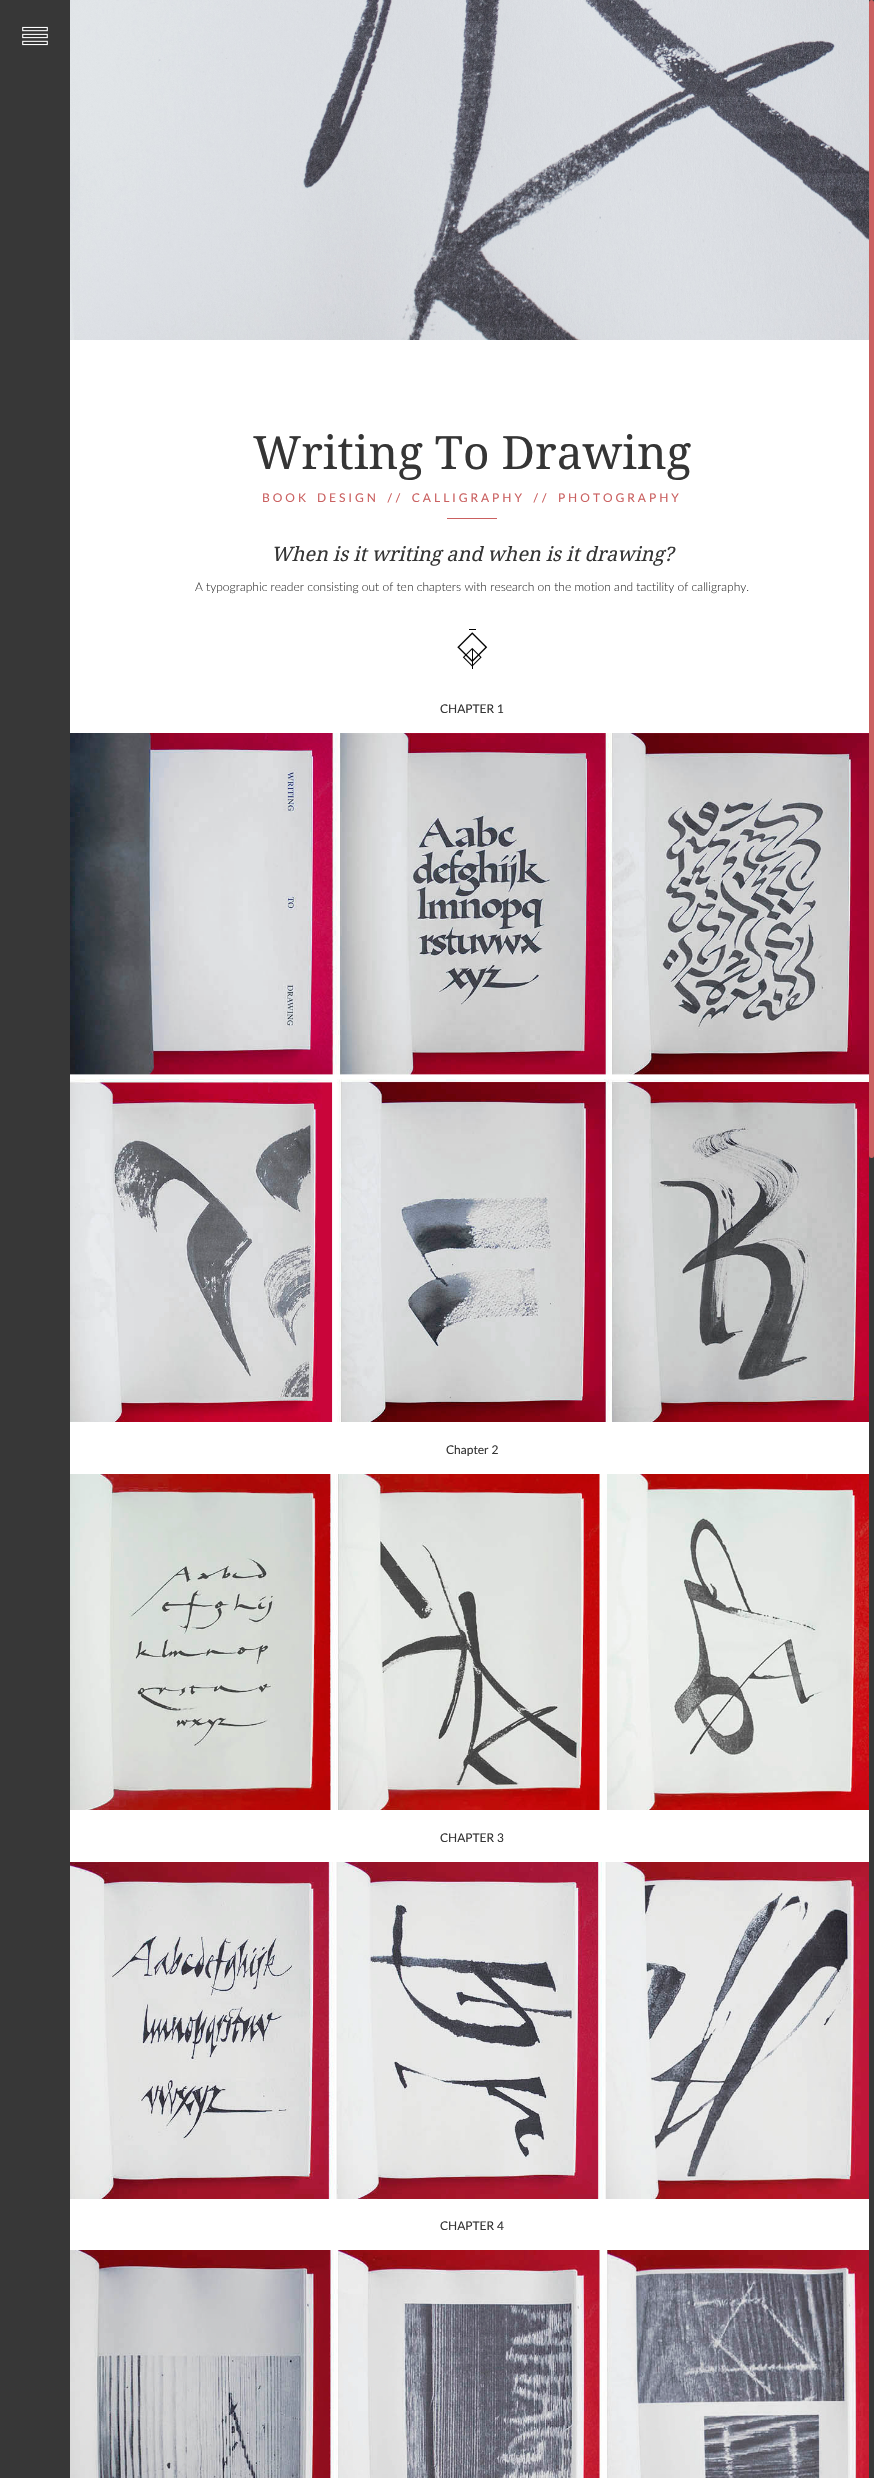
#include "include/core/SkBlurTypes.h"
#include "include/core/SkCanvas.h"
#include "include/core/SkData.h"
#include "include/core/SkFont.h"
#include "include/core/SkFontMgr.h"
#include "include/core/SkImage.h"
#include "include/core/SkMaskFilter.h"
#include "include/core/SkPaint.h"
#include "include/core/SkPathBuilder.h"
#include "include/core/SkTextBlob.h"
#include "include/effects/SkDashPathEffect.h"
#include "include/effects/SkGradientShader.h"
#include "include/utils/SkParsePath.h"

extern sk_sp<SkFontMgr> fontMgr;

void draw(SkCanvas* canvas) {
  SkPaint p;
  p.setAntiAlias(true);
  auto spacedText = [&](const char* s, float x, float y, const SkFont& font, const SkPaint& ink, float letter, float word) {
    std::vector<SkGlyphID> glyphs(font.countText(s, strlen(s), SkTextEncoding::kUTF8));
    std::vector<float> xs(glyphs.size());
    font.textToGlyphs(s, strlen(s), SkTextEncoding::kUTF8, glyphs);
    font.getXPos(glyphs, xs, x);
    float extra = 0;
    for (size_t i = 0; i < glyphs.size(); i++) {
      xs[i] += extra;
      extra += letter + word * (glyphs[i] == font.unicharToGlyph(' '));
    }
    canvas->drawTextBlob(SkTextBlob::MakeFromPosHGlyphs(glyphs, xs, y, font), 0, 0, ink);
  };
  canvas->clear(SkColorSetRGB(55, 55, 55));
  canvas->drawImageRect(SkImages::DeferredFromEncodedData(SkData::MakeFromFileName("images/1.png")), SkRect::MakeLTRB(22, 26, 48, 46), SkSamplingOptions());
  p.setColor(SkColorSetRGB(202, 96, 96));
  canvas->drawRoundRect(SkRect::MakeLTRB(869, 0, 874, 1158), 2.5f, 2.5f, p);
  canvas->drawImageRect(SkImages::DeferredFromEncodedData(SkData::MakeFromFileName("images/2.png")), SkRect::MakeLTRB(70, 0, 869, 340), SkSamplingOptions());
  p.setColor(SK_ColorWHITE);
  canvas->drawRect(SkRect::MakeLTRB(70, 340, 869, 2250), p);
  p.setColor(SkColorSetRGB(202, 96, 96));
  canvas->drawRect(SkRect::MakeLTRB(447, 518, 497, 519), p);
  canvas->drawImageRect(SkImages::DeferredFromEncodedData(SkData::MakeFromFileName("images/3.png")), SkRect::MakeLTRB(457, 629, 488, 669), SkSamplingOptions());
  canvas->drawImageRect(SkImages::DeferredFromEncodedData(SkData::MakeFromFileName("images/4.png")), SkRect::MakeLTRB(70, 733, 869, 1422), SkSamplingOptions());
  canvas->drawImageRect(SkImages::DeferredFromEncodedData(SkData::MakeFromFileName("images/5.png")), SkRect::MakeLTRB(70, 1474, 869, 1810), SkSamplingOptions());
  canvas->drawImageRect(SkImages::DeferredFromEncodedData(SkData::MakeFromFileName("images/6.png")), SkRect::MakeLTRB(70, 1862, 869, 2199), SkSamplingOptions());
  canvas->drawImageRect(SkImages::DeferredFromEncodedData(SkData::MakeFromFileName("images/7.png")), SkRect::MakeLTRB(70, 2250, 869, 2478), SkSamplingOptions());
  SkFont font1(fontMgr->matchFamilyStyle("Noto Serif", SkFontStyle::Normal()), 46);
  font1.setSubpixel(true);
  p.setColor(SkColorSetRGB(53, 53, 53));
  canvas->drawString("Writing To Drawing", 253, 469, font1, p);
  SkFont font2(fontMgr->matchFamilyStyle("Lato", SkFontStyle::Normal()), 12);
  font2.setSubpixel(true);
  p.setColor(SkColorSetRGB(202, 96, 96));
  spacedText("BOOK DESIGN // CALLIGRAPHY // PHOTOGRAPHY", 262, 502, font2, p, 3, 2);
  SkFont font3(fontMgr->matchFamilyStyle("Noto Serif", SkFontStyle::Italic()), 19.8f);
  font3.setSubpixel(true);
  p.setColor(SkColorSetRGB(53, 53, 53));
  canvas->drawString("When is it writing and when is it drawing?", 271, 561, font3, p);
  SkFont font4(fontMgr->matchFamilyStyle("Lato", SkFontStyle(300, SkFontStyle::kNormal_Width, SkFontStyle::kUpright_Slant)), 12);
  font4.setSubpixel(true);
  canvas->drawString("A typographic reader consisting out of ten chapters with research on the motion and tactility of calligraphy.", 195, 591, font4, p);
  canvas->drawString("CHAPTER 1", 440, 713, font2, p);
  canvas->drawString("Chapter 2", 446, 1454, font2, p);
  canvas->drawString("CHAPTER 3", 440, 1842, font2, p);
  canvas->drawString("CHAPTER 4", 440, 2230, font2, p);
}
